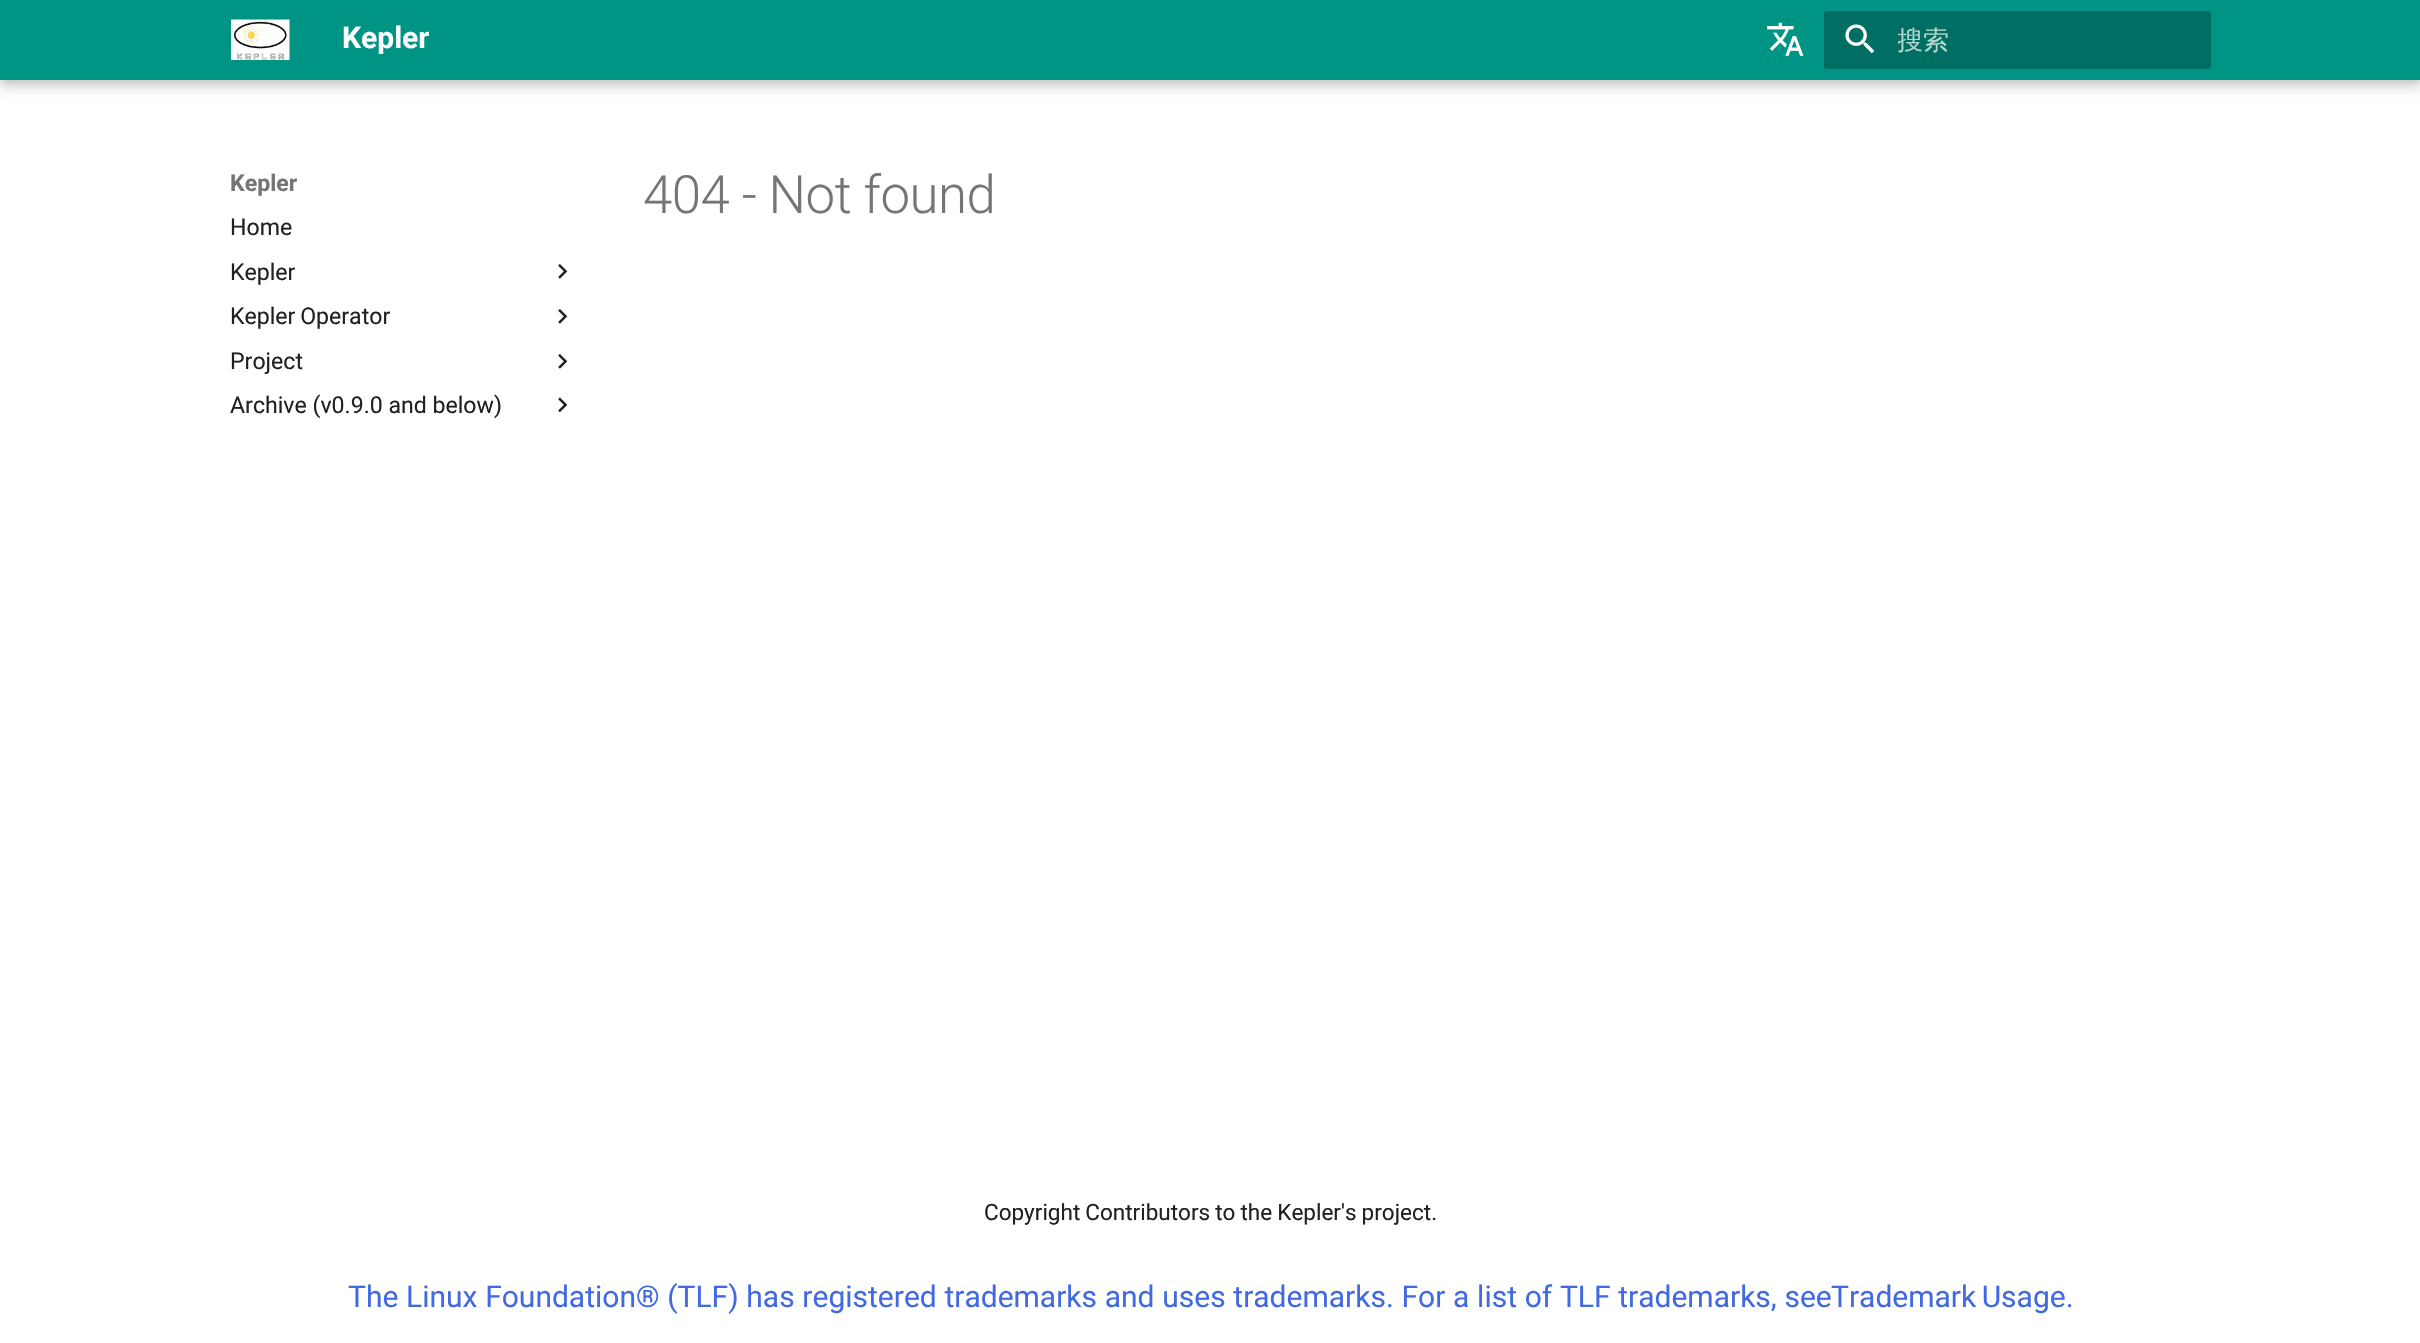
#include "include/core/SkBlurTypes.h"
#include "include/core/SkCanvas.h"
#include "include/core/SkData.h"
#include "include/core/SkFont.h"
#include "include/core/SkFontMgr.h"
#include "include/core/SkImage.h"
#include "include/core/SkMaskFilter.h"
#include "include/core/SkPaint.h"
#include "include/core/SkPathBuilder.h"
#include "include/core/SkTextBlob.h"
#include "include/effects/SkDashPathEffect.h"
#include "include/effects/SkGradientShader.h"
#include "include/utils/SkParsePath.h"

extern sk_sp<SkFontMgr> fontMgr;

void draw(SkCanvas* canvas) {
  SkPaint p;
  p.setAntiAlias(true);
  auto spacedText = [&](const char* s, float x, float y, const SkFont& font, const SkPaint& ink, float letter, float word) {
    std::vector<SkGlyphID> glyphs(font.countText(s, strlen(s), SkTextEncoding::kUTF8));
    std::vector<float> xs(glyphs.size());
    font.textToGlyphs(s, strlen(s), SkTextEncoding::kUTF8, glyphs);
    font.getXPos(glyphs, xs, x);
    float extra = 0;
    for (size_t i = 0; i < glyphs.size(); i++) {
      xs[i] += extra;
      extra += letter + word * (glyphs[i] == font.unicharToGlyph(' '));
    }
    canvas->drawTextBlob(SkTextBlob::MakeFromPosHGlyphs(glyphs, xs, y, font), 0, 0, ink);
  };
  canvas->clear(SK_ColorWHITE);
  p.setColor(SkColorSetARGB(51, 0, 0, 0));
  p.setMaskFilter(SkMaskFilter::MakeBlur(kNormal_SkBlurStyle, 6.5f));
  canvas->drawRect(SkRect::MakeLTRB(0, 6, 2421, 86), p);
  p.setMaskFilter(nullptr);
  p.setColor(SkColorSetARGB(26, 0, 0, 0));
  p.setMaskFilter(SkMaskFilter::MakeBlur(kNormal_SkBlurStyle, 3.5f));
  canvas->drawRect(SkRect::MakeLTRB(0, 0, 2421, 80), p);
  p.setMaskFilter(nullptr);
  p.setColor(SkColorSetRGB(0, 148, 133));
  canvas->drawRect(SkRect::MakeLTRB(0, 0, 2420, 80), p);
  canvas->drawImageRect(SkImages::DeferredFromEncodedData(SkData::MakeFromFileName("images/1.png")), SkRect::MakeLTRB(231, 19, 290, 60), SkSamplingOptions());
  canvas->drawImageRect(SkImages::DeferredFromEncodedData(SkData::MakeFromFileName("images/2.png")), SkRect::MakeLTRB(1767, 22, 1804, 56), SkSamplingOptions());
  p.setColor(SkColorSetRGB(0, 110, 98));
  canvas->drawRoundRect(SkRect::MakeLTRB(1824, 11, 2211, 69), 3, 3, p);
  canvas->drawImageRect(SkImages::DeferredFromEncodedData(SkData::MakeFromFileName("images/3.png")), SkRect::MakeLTRB(1845, 24, 1875, 54), SkSamplingOptions());
  canvas->save();
  canvas->clipRect(SkRect::MakeLTRB(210, 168, 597, 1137));
  canvas->clipPath(SkPathBuilder(SkPathFillType::kEvenOdd).moveTo(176, 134).lineTo(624, 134).lineTo(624, 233).lineTo(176, 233).close().moveTo(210, 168).lineTo(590, 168).lineTo(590, 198).lineTo(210, 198).close().detach(), true);
  p.setColor(SK_ColorWHITE);
  p.setMaskFilter(SkMaskFilter::MakeBlur(kNormal_SkBlurStyle, 6.5f));
  canvas->drawRect(SkRect::MakeLTRB(197, 155, 603, 212), p);
  p.setMaskFilter(nullptr);
  canvas->restore();
  canvas->drawImageRect(SkImages::DeferredFromEncodedData(SkData::MakeFromFileName("images/4.png")), SkRect::MakeLTRB(558, 264, 568, 279), SkSamplingOptions());
  canvas->drawImageRect(SkImages::DeferredFromEncodedData(SkData::MakeFromFileName("images/4.png")), SkRect::MakeLTRB(558, 309, 568, 324), SkSamplingOptions());
  canvas->drawImageRect(SkImages::DeferredFromEncodedData(SkData::MakeFromFileName("images/4.png")), SkRect::MakeLTRB(558, 354, 568, 369), SkSamplingOptions());
  canvas->drawImageRect(SkImages::DeferredFromEncodedData(SkData::MakeFromFileName("images/5.png")), SkRect::MakeLTRB(558, 397, 568, 413), SkSamplingOptions());
  SkFont font1(fontMgr->matchFamilyStyle("Roboto", SkFontStyle::Bold()), 30);
  font1.setSubpixel(true);
  canvas->drawString("Kepler", 342, 48, font1, p);
  canvas->save();
  canvas->clipRect(SkRect::MakeLTRB(1898, 21, 2138, 57));
  SkFont font2(fontMgr->matchFamilyStyle("WenQuanYi Zen Hei", SkFontStyle(500, SkFontStyle::kNormal_Width, SkFontStyle::kUpright_Slant)), 26);
  font2.setSubpixel(true);
  p.setColor(SkColorSetRGB(179, 212, 208));
  canvas->drawString("搜索", 1897, 49, font2, p);
  canvas->restore();
  SkFont font3(fontMgr->matchFamilyStyle("Roboto", SkFontStyle::Bold()), 23.1f);
  font3.setSubpixel(true);
  p.setColor(SkColorSetRGB(117, 117, 117));
  canvas->drawString("Kepler", 230, 191, font3, p);
  SkFont font4(fontMgr->matchFamilyStyle("Roboto", SkFontStyle::Normal()), 23.1f);
  font4.setSubpixel(true);
  p.setColor(SkColorSetRGB(33, 33, 33));
  canvas->drawString("Home", 230, 235, font4, p);
  canvas->drawString("Kepler", 230, 280, font4, p);
  spacedText("Kepler Operator", 230, 324, font4, p, 0, -1);
  canvas->drawString("Project", 230, 369, font4, p);
  canvas->drawString("Archive (v0.9.0 and below)", 230, 413, font4, p);
  SkFont font5(fontMgr->matchFamilyStyle("Roboto", SkFontStyle(300, SkFontStyle::kNormal_Width, SkFontStyle::kUpright_Slant)), 52.75f);
  font5.setSubpixel(true);
  p.setColor(SkColorSetRGB(117, 117, 117));
  spacedText("404 - Not found", 643, 213, font5, p, -0.5f, 0);
  SkFont font6(fontMgr->matchFamilyStyle("Roboto", SkFontStyle::Normal()), 22.5f);
  font6.setSubpixel(true);
  p.setColor(SkColorSetRGB(33, 33, 33));
  spacedText("Copyright Contributors to the Kepler's project.", 984, 1220, font6, p, 0, -0.5f);
  SkFont font7(fontMgr->matchFamilyStyle("Roboto", SkFontStyle::Normal()), 30);
  font7.setSubpixel(true);
  p.setColor(SkColorSetRGB(65, 105, 225));
  spacedText("The Linux Foundation® (TLF) has registered trademarks and uses trademarks. For a list of TLF trademarks, see", 348, 1307, font7, p, 0, 0.25f);
  spacedText("Trademark Usage.", 1831, 1307, font7, p, 0, -2);
}
